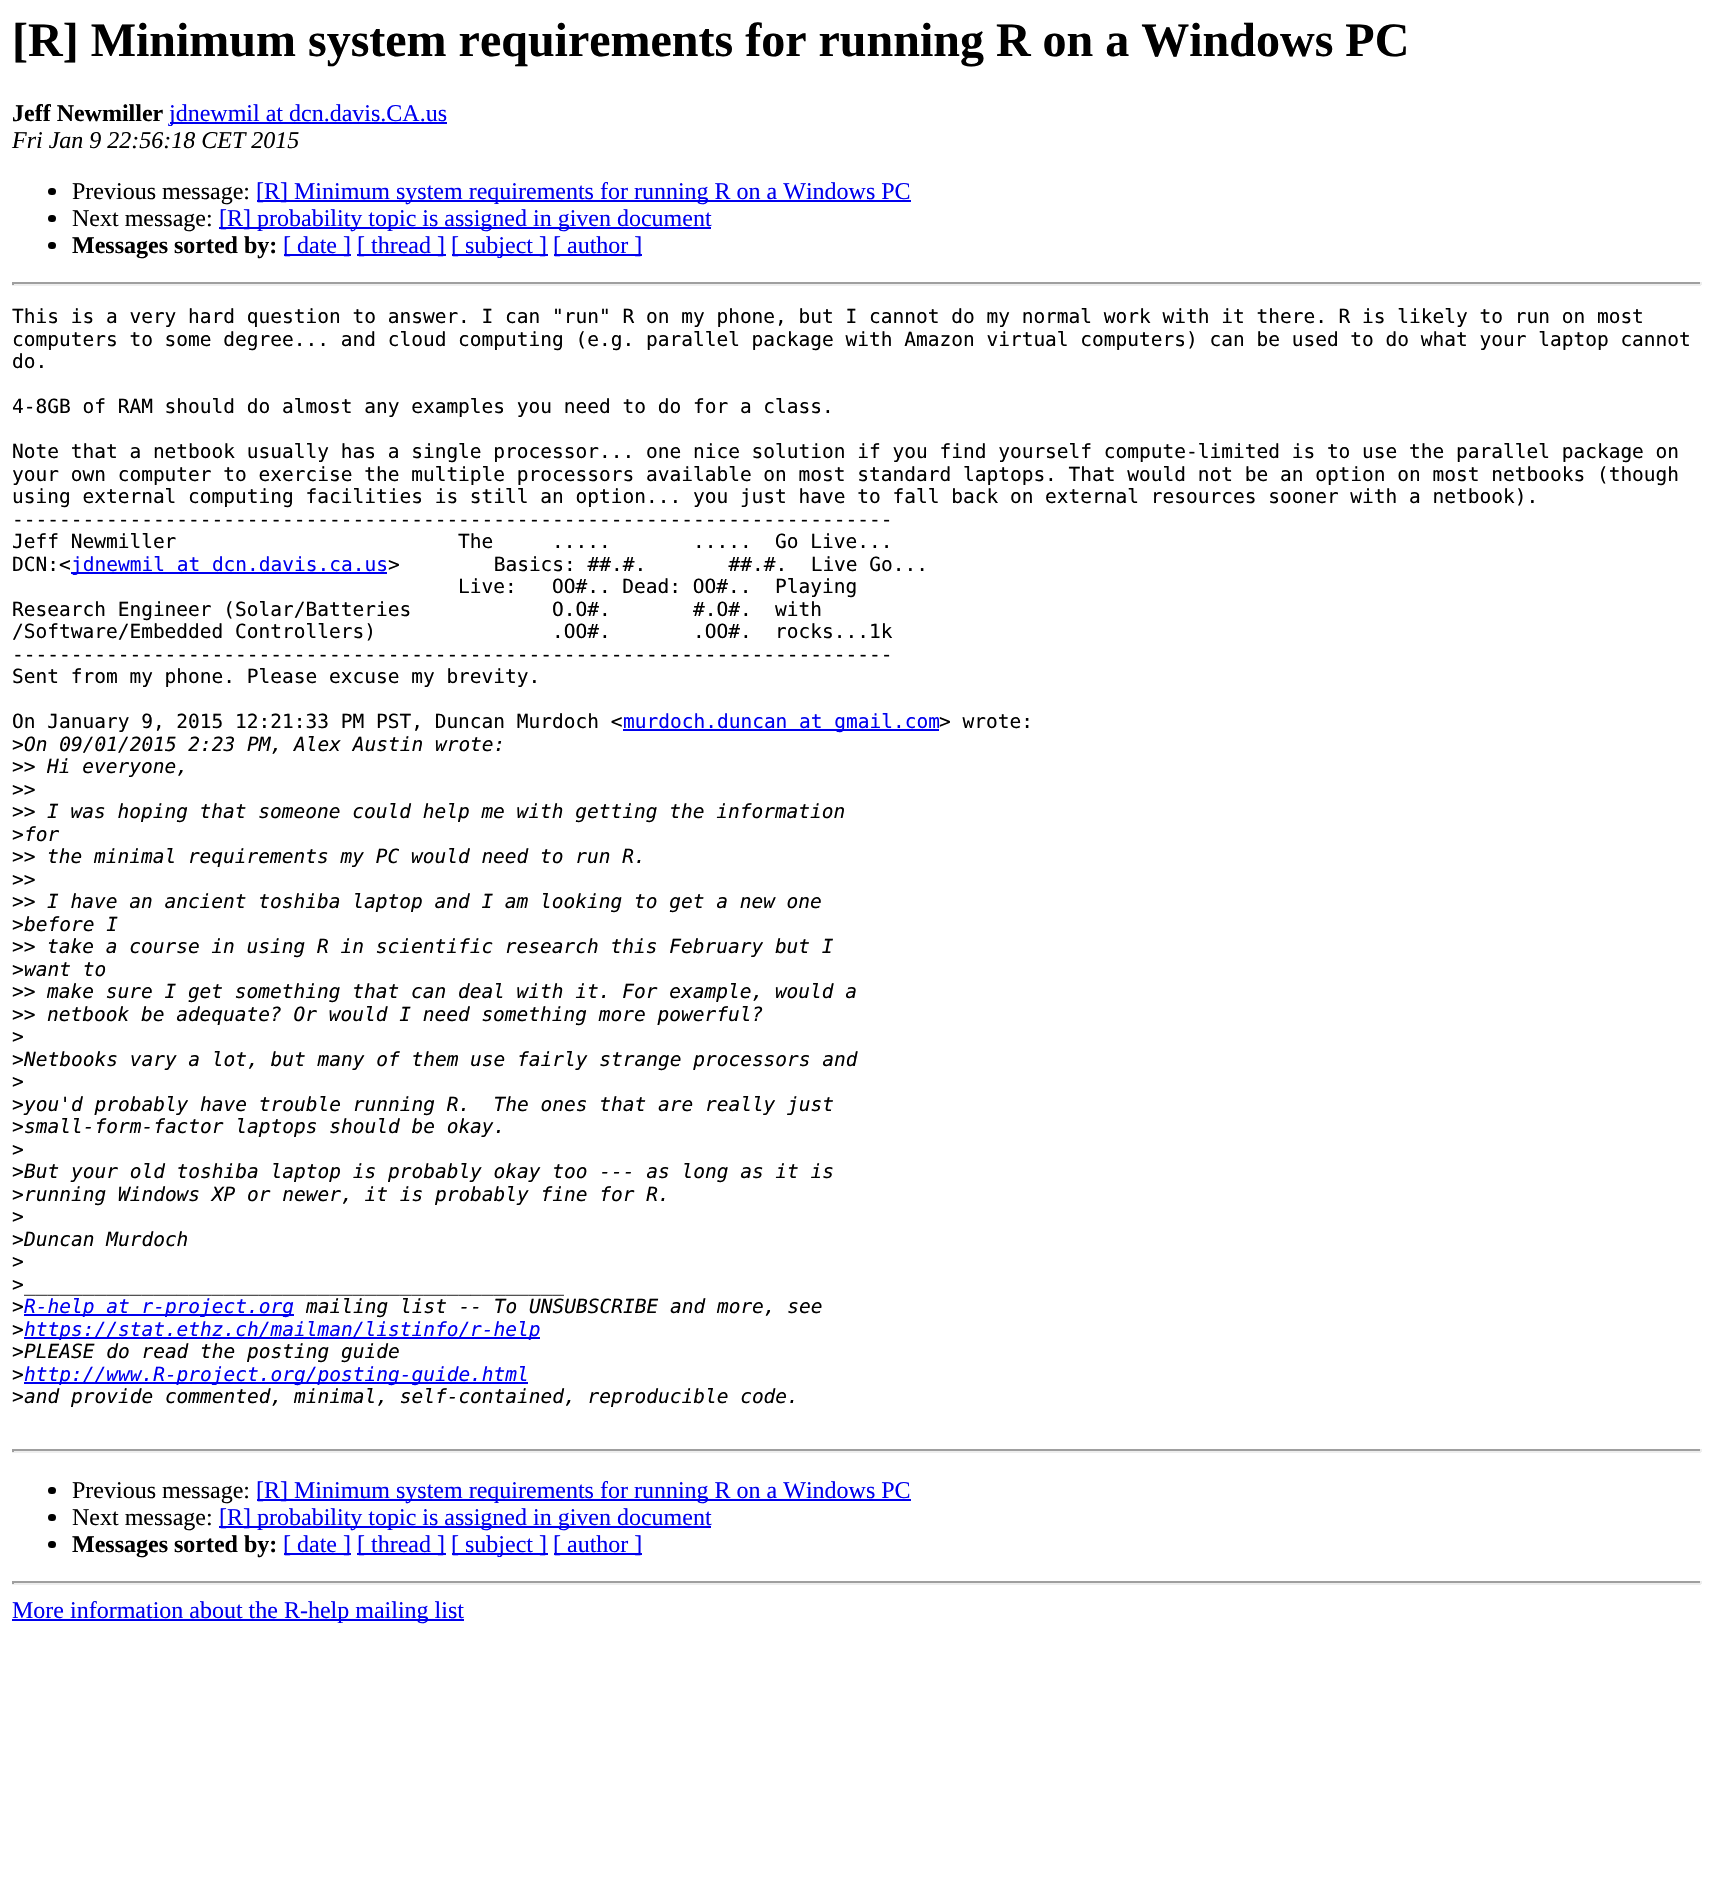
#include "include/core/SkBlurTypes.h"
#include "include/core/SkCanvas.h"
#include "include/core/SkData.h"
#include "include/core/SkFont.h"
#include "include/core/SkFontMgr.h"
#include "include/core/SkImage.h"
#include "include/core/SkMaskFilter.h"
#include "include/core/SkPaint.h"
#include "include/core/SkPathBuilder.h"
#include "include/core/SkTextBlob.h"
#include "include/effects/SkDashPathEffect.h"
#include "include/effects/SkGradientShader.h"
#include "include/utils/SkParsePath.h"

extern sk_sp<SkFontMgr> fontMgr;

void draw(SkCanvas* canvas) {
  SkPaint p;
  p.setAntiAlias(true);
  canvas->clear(SK_ColorWHITE);
  p.setColor(SkColorSetRGB(0, 0, 238));
  canvas->drawRect(SkRect::MakeLTRB(170, 122, 447, 124), p);
  p.setColor(SK_ColorBLACK);
  canvas->drawRoundRect(SkRect::MakeLTRB(48, 188, 56, 195), 3.5f, 3.5f, p);
  p.setColor(SkColorSetRGB(0, 0, 238));
  canvas->drawRect(SkRect::MakeLTRB(257, 200, 911, 202), p);
  p.setColor(SK_ColorBLACK);
  canvas->drawRoundRect(SkRect::MakeLTRB(48, 215, 56, 222), 3.5f, 3.5f, p);
  p.setColor(SkColorSetRGB(0, 0, 238));
  canvas->drawRect(SkRect::MakeLTRB(219, 227, 711, 229), p);
  p.setColor(SK_ColorBLACK);
  canvas->drawRoundRect(SkRect::MakeLTRB(48, 242, 56, 249), 3.5f, 3.5f, p);
  p.setColor(SkColorSetRGB(0, 0, 238));
  canvas->drawRect(SkRect::MakeLTRB(284, 254, 351, 256), p);
  canvas->drawRect(SkRect::MakeLTRB(357, 254, 446, 256), p);
  canvas->drawRect(SkRect::MakeLTRB(452, 254, 548, 256), p);
  canvas->drawRect(SkRect::MakeLTRB(554, 254, 642, 256), p);
  p.setColor(SkColorSetRGB(159, 159, 159));
  canvas->drawRect(SkRect::MakeLTRB(12, 282, 1701, 284), p);
  p.setColor(SkColorSetRGB(238, 238, 238));
  canvas->drawRect(SkRect::MakeLTRB(1700, 282, 1702, 285), p);
  canvas->drawRect(SkRect::MakeLTRB(12, 284, 1701, 286), p);
  p.setColor(SkColorSetRGB(159, 159, 159));
  canvas->drawRect(SkRect::MakeLTRB(12, 282, 14, 285), p);
  p.setColor(SkColorSetRGB(0, 0, 238));
  canvas->drawRect(SkRect::MakeLTRB(71, 572, 387, 574), p);
  canvas->drawRect(SkRect::MakeLTRB(623, 729, 939, 731), p);
  canvas->drawRect(SkRect::MakeLTRB(24, 1314, 294, 1316), p);
  canvas->drawRect(SkRect::MakeLTRB(24, 1337, 540, 1339), p);
  canvas->drawRect(SkRect::MakeLTRB(24, 1382, 528, 1384), p);
  p.setColor(SkColorSetRGB(159, 159, 159));
  canvas->drawRect(SkRect::MakeLTRB(12, 1449, 1701, 1451), p);
  p.setColor(SkColorSetRGB(238, 238, 238));
  canvas->drawRect(SkRect::MakeLTRB(1700, 1449, 1702, 1452), p);
  canvas->drawRect(SkRect::MakeLTRB(12, 1451, 1701, 1453), p);
  p.setColor(SkColorSetRGB(159, 159, 159));
  canvas->drawRect(SkRect::MakeLTRB(12, 1449, 14, 1452), p);
  p.setColor(SK_ColorBLACK);
  canvas->drawRoundRect(SkRect::MakeLTRB(48, 1487, 56, 1494), 3.5f, 3.5f, p);
  p.setColor(SkColorSetRGB(0, 0, 238));
  canvas->drawRect(SkRect::MakeLTRB(257, 1499, 911, 1501), p);
  p.setColor(SK_ColorBLACK);
  canvas->drawRoundRect(SkRect::MakeLTRB(48, 1514, 56, 1521), 3.5f, 3.5f, p);
  p.setColor(SkColorSetRGB(0, 0, 238));
  canvas->drawRect(SkRect::MakeLTRB(219, 1526, 711, 1528), p);
  p.setColor(SK_ColorBLACK);
  canvas->drawRoundRect(SkRect::MakeLTRB(48, 1541, 56, 1548), 3.5f, 3.5f, p);
  p.setColor(SkColorSetRGB(0, 0, 238));
  canvas->drawRect(SkRect::MakeLTRB(284, 1553, 351, 1555), p);
  canvas->drawRect(SkRect::MakeLTRB(357, 1553, 446, 1555), p);
  canvas->drawRect(SkRect::MakeLTRB(452, 1553, 548, 1555), p);
  canvas->drawRect(SkRect::MakeLTRB(554, 1553, 642, 1555), p);
  p.setColor(SkColorSetRGB(159, 159, 159));
  canvas->drawRect(SkRect::MakeLTRB(12, 1581, 1701, 1583), p);
  p.setColor(SkColorSetRGB(238, 238, 238));
  canvas->drawRect(SkRect::MakeLTRB(1700, 1581, 1702, 1584), p);
  canvas->drawRect(SkRect::MakeLTRB(12, 1583, 1701, 1585), p);
  p.setColor(SkColorSetRGB(159, 159, 159));
  canvas->drawRect(SkRect::MakeLTRB(12, 1581, 14, 1584), p);
  p.setColor(SkColorSetRGB(0, 0, 238));
  canvas->drawRect(SkRect::MakeLTRB(12, 1619, 464, 1621), p);
  SkFont font1(fontMgr->matchFamilyStyle("Liberation Serif", SkFontStyle::Bold()), 48);
  font1.setSubpixel(true);
  p.setColor(SK_ColorBLACK);
  canvas->drawString("[R] Minimum system requirements for running R on a Windows PC", 12, 56, font1, p);
  SkFont font2(fontMgr->matchFamilyStyle("Liberation Serif", SkFontStyle::Bold()), 24);
  font2.setSubpixel(true);
  canvas->drawString("Jeff Newmiller", 12, 121, font2, p);
  SkFont font3(fontMgr->matchFamilyStyle("Liberation Serif", SkFontStyle::Normal()), 24);
  font3.setSubpixel(true);
  p.setColor(SkColorSetRGB(0, 0, 238));
  canvas->drawString("jdnewmil at dcn.davis.CA.us", 169, 121, font3, p);
  SkFont font4(fontMgr->matchFamilyStyle("Liberation Serif", SkFontStyle::Italic()), 24);
  font4.setSubpixel(true);
  p.setColor(SK_ColorBLACK);
  canvas->drawString("Fri Jan 9 22:56:18 CET 2015", 12, 148, font4, p);
  canvas->drawString("Previous message:", 72, 199, font3, p);
  p.setColor(SkColorSetRGB(0, 0, 238));
  canvas->drawString("[R] Minimum system requirements for running R on a Windows PC", 256, 199, font3, p);
  p.setColor(SK_ColorBLACK);
  canvas->drawString("Next message:", 72, 226, font3, p);
  p.setColor(SkColorSetRGB(0, 0, 238));
  canvas->drawString("[R] probability topic is assigned in given document", 219, 226, font3, p);
  p.setColor(SK_ColorBLACK);
  canvas->drawString("Messages sorted by:", 72, 253, font2, p);
  p.setColor(SkColorSetRGB(0, 0, 238));
  canvas->drawString("[ date ]", 283, 253, font3, p);
  canvas->drawString("[ thread ]", 357, 253, font3, p);
  canvas->drawString("[ subject ]", 451, 253, font3, p);
  canvas->drawString("[ author ]", 553, 253, font3, p);
  SkFont font5(fontMgr->matchFamilyStyle("DejaVu Sans Mono", SkFontStyle::Normal()), 19.5f);
  font5.setSubpixel(true);
  p.setColor(SK_ColorBLACK);
  canvas->drawString("This is a very hard question to answer. I can \"run\" R on my phone, but I cannot do my normal work with it there. R is likely to run on most", 12, 323, font5, p);
  canvas->drawString("computers to some degree... and cloud computing (e.g. parallel package with Amazon virtual computers) can be used to do what your laptop cannot", 12, 346, font5, p);
  canvas->drawString("do.", 12, 368, font5, p);
  canvas->drawString("4-8GB of RAM should do almost any examples you need to do for a class.", 12, 413, font5, p);
  canvas->drawString("Note that a netbook usually has a single processor... one nice solution if you find yourself compute-limited is to use the parallel package on", 12, 458, font5, p);
  canvas->drawString("your own computer to exercise the multiple processors available on most standard laptops. That would not be an option on most netbooks (though", 12, 481, font5, p);
  canvas->drawString("using external computing facilities is still an option... you just have to fall back on external resources sooner with a netbook).", 12, 503, font5, p);
  canvas->drawString("---------------------------------------------------------------------------", 12, 526, font5, p);
  canvas->drawString("Jeff Newmiller                        The     .....       .....  Go Live...", 12, 548, font5, p);
  canvas->drawString("DCN:<", 12, 571, font5, p);
  p.setColor(SkColorSetRGB(0, 0, 238));
  canvas->drawString("jdnewmil at dcn.davis.ca.us", 71, 571, font5, p);
  p.setColor(SK_ColorBLACK);
  canvas->drawString(">        Basics: ##.#.       ##.#.  Live Go...", 388, 571, font5, p);
  canvas->drawString("Live:   OO#.. Dead: OO#..  Playing", 458, 593, font5, p);
  canvas->drawString("Research Engineer (Solar/Batteries            O.O#.       #.O#.  with", 12, 616, font5, p);
  canvas->drawString("/Software/Embedded Controllers)               .OO#.       .OO#.  rocks...1k", 12, 638, font5, p);
  canvas->drawString("---------------------------------------------------------------------------", 12, 661, font5, p);
  canvas->drawString("Sent from my phone. Please excuse my brevity.", 12, 683, font5, p);
  canvas->drawString("On January 9, 2015 12:21:33 PM PST, Duncan Murdoch <", 12, 728, font5, p);
  p.setColor(SkColorSetRGB(0, 0, 238));
  canvas->drawString("murdoch.duncan at gmail.com", 623, 728, font5, p);
  p.setColor(SK_ColorBLACK);
  canvas->drawString("> wrote:", 939, 728, font5, p);
  canvas->drawString(">", 12, 751, font5, p);
  SkFont font6(fontMgr->matchFamilyStyle("DejaVu Sans Mono", SkFontStyle::Italic()), 19.5f);
  font6.setSubpixel(true);
  canvas->drawString("On 09/01/2015 2:23 PM, Alex Austin wrote:", 24, 751, font6, p);
  canvas->drawString(">>", 12, 773, font5, p);
  canvas->drawString("Hi everyone,", 47, 773, font6, p);
  canvas->drawString(">>", 12, 796, font5, p);
  canvas->drawString(">>", 12, 818, font5, p);
  canvas->drawString("I was hoping that someone could help me with getting the information", 47, 818, font6, p);
  canvas->drawString(">", 12, 841, font5, p);
  canvas->drawString("for", 24, 841, font6, p);
  canvas->drawString(">>", 12, 863, font5, p);
  canvas->drawString("the minimal requirements my PC would need to run R.", 47, 863, font6, p);
  canvas->drawString(">>", 12, 886, font5, p);
  canvas->drawString(">>", 12, 908, font5, p);
  canvas->drawString("I have an ancient toshiba laptop and I am looking to get a new one", 47, 908, font6, p);
  canvas->drawString(">", 12, 931, font5, p);
  canvas->drawString("before I", 24, 931, font6, p);
  canvas->drawString(">>", 12, 953, font5, p);
  canvas->drawString("take a course in using R in scientific research this February but I", 47, 953, font6, p);
  canvas->drawString(">", 12, 976, font5, p);
  canvas->drawString("want to", 24, 976, font6, p);
  canvas->drawString(">>", 12, 998, font5, p);
  canvas->drawString("make sure I get something that can deal with it. For example, would a", 47, 998, font6, p);
  canvas->drawString(">>", 12, 1021, font5, p);
  canvas->drawString("netbook be adequate? Or would I need something more powerful?", 47, 1021, font6, p);
  canvas->drawString(">", 12, 1043, font5, p);
  canvas->drawString(">", 12, 1066, font5, p);
  canvas->drawString("Netbooks vary a lot, but many of them use fairly strange processors and", 24, 1066, font6, p);
  canvas->drawString(">", 12, 1088, font5, p);
  canvas->drawString(">", 12, 1111, font5, p);
  canvas->drawString("you'd probably have trouble running R.  The ones that are really just", 24, 1111, font6, p);
  canvas->drawString(">", 12, 1133, font5, p);
  canvas->drawString("small-form-factor laptops should be okay.", 24, 1133, font6, p);
  canvas->drawString(">", 12, 1156, font5, p);
  canvas->drawString(">", 12, 1178, font5, p);
  canvas->drawString("But your old toshiba laptop is probably okay too --- as long as it is", 24, 1178, font6, p);
  canvas->drawString(">", 12, 1201, font5, p);
  canvas->drawString("running Windows XP or newer, it is probably fine for R.", 24, 1201, font6, p);
  canvas->drawString(">", 12, 1223, font5, p);
  canvas->drawString(">", 12, 1246, font5, p);
  canvas->drawString("Duncan Murdoch", 24, 1246, font6, p);
  canvas->drawString(">", 12, 1268, font5, p);
  canvas->drawString(">", 12, 1291, font5, p);
  canvas->drawString("______________________________________________", 24, 1291, font6, p);
  canvas->drawString(">", 12, 1313, font5, p);
  p.setColor(SkColorSetRGB(0, 0, 238));
  canvas->drawString("R-help at r-project.org", 24, 1313, font6, p);
  p.setColor(SK_ColorBLACK);
  canvas->drawString("mailing list -- To UNSUBSCRIBE and more, see", 306, 1313, font6, p);
  canvas->drawString(">", 12, 1336, font5, p);
  p.setColor(SkColorSetRGB(0, 0, 238));
  canvas->drawString("https://stat.ethz.ch/mailman/listinfo/r-help", 24, 1336, font6, p);
  p.setColor(SK_ColorBLACK);
  canvas->drawString(">", 12, 1358, font5, p);
  canvas->drawString("PLEASE do read the posting guide", 24, 1358, font6, p);
  canvas->drawString(">", 12, 1381, font5, p);
  p.setColor(SkColorSetRGB(0, 0, 238));
  canvas->drawString("http://www.R-project.org/posting-guide.html", 24, 1381, font6, p);
  p.setColor(SK_ColorBLACK);
  canvas->drawString(">", 12, 1403, font5, p);
  canvas->drawString("and provide commented, minimal, self-contained, reproducible code.", 24, 1403, font6, p);
  canvas->drawString("Previous message:", 72, 1498, font3, p);
  p.setColor(SkColorSetRGB(0, 0, 238));
  canvas->drawString("[R] Minimum system requirements for running R on a Windows PC", 256, 1498, font3, p);
  p.setColor(SK_ColorBLACK);
  canvas->drawString("Next message:", 72, 1525, font3, p);
  p.setColor(SkColorSetRGB(0, 0, 238));
  canvas->drawString("[R] probability topic is assigned in given document", 219, 1525, font3, p);
  p.setColor(SK_ColorBLACK);
  canvas->drawString("Messages sorted by:", 72, 1552, font2, p);
  p.setColor(SkColorSetRGB(0, 0, 238));
  canvas->drawString("[ date ]", 283, 1552, font3, p);
  canvas->drawString("[ thread ]", 357, 1552, font3, p);
  canvas->drawString("[ subject ]", 451, 1552, font3, p);
  canvas->drawString("[ author ]", 553, 1552, font3, p);
  canvas->drawString("More information about the R-help mailing list", 12, 1618, font3, p);
}
